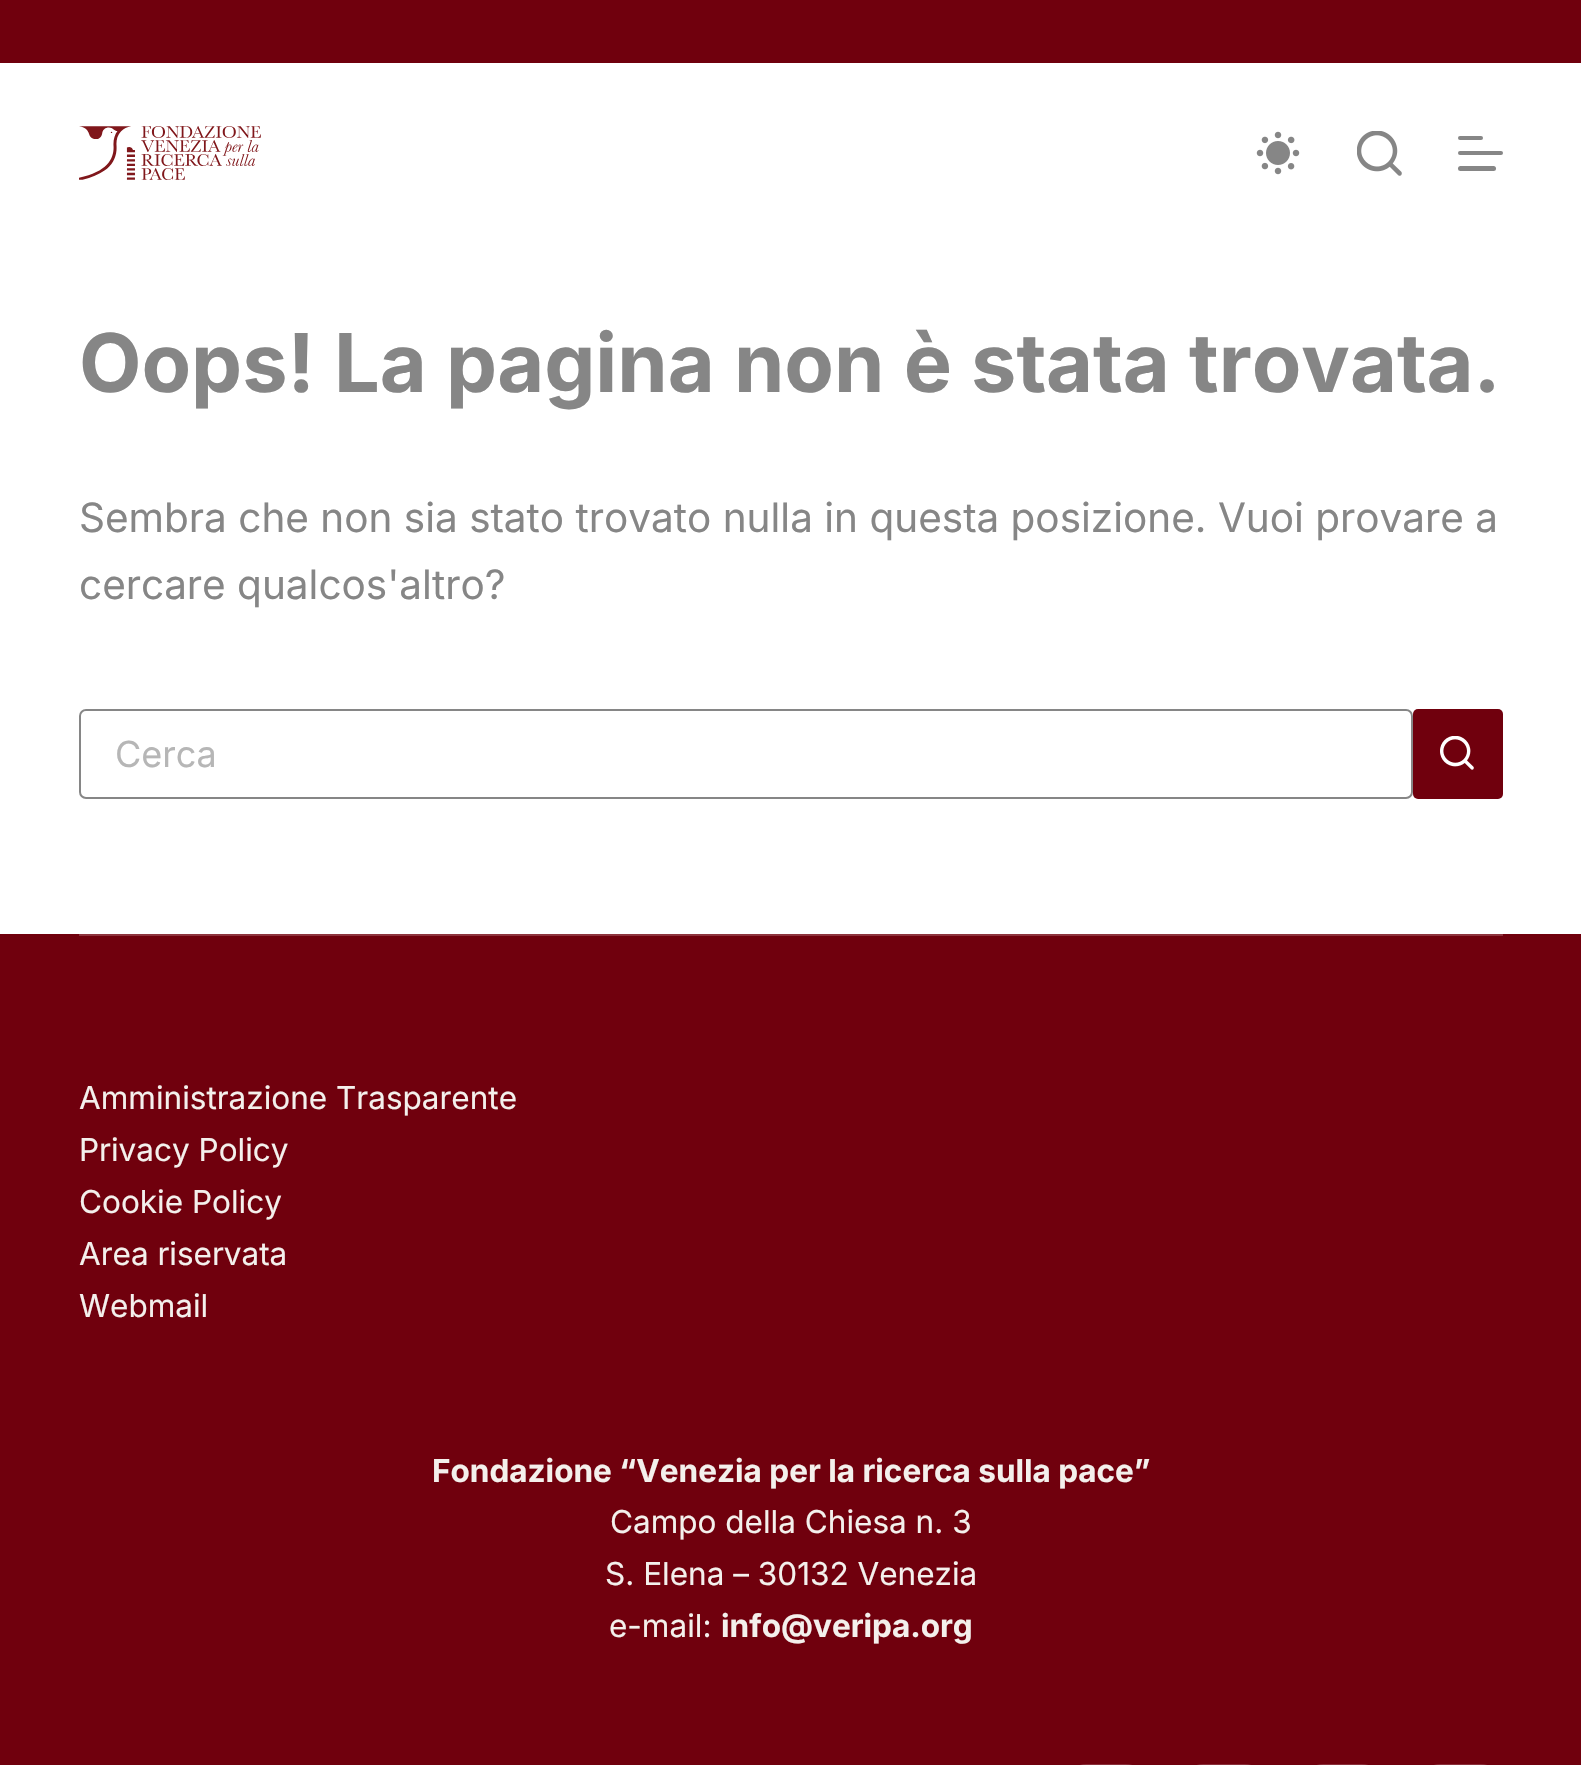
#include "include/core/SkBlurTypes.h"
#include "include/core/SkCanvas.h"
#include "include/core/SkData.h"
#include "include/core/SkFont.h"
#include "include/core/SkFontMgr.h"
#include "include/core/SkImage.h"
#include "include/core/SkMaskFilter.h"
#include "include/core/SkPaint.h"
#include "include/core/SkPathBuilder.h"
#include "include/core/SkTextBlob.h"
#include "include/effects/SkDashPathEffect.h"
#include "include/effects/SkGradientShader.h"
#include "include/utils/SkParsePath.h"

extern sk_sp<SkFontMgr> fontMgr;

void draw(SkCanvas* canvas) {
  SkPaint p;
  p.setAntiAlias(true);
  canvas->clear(SK_ColorWHITE);
  p.setColor(SkColorSetRGB(112, 0, 13));
  canvas->drawRect(SkRect::MakeLTRB(0, 0, 1581, 63), p);
  canvas->drawImageRect(SkImages::DeferredFromEncodedData(SkData::MakeFromFileName("images/1.png")), SkRect::MakeLTRB(79, 126, 261, 180), SkSamplingOptions());
  canvas->drawImageRect(SkImages::DeferredFromEncodedData(SkData::MakeFromFileName("images/2.png")), SkRect::MakeLTRB(1256, 131, 1300, 175), SkSamplingOptions());
  canvas->drawImageRect(SkImages::DeferredFromEncodedData(SkData::MakeFromFileName("images/3.png")), SkRect::MakeLTRB(1357, 131, 1402, 176), SkSamplingOptions());
  p.setColor(SkColorSetRGB(134, 134, 134));
  canvas->drawRoundRect(SkRect::MakeLTRB(1458, 136, 1483, 140), 2, 2, p);
  canvas->drawRoundRect(SkRect::MakeLTRB(1458, 151, 1503, 155), 2, 2, p);
  canvas->drawRoundRect(SkRect::MakeLTRB(1458, 166, 1496, 171), 2.5f, 2.5f, p);
  p.setStyle(SkPaint::kStroke_Style);
  p.setStrokeWidth(2);
  canvas->drawRoundRect(SkRect::MakeLTRB(80, 710, 1412, 798), 6, 6, p);
  p.setStyle(SkPaint::kFill_Style);
  p.setColor(SkColorSetRGB(112, 0, 13));
  canvas->drawRoundRect(SkRect::MakeLTRB(1413, 709, 1503, 799), 5, 5, p);
  canvas->drawImageRect(SkImages::DeferredFromEncodedData(SkData::MakeFromFileName("images/4.png")), SkRect::MakeLTRB(1440, 736, 1474, 770), SkSamplingOptions());
  canvas->drawRect(SkRect::MakeLTRB(0, 934, 1581, 1765), p);
  p.setColor(SkColorSetRGB(141, 51, 61));
  canvas->drawRect(SkRect::MakeLTRB(79, 934, 1503, 936), p);
  p.setStyle(SkPaint::kStroke_Style);
  p.setColor(SkColorSetRGB(138, 46, 57));
  canvas->drawRoundRect(SkRect::MakeLTRB(1065, 1765, 1147, 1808), 40.5f, 40.5f, p);
  canvas->drawRoundRect(SkRect::MakeLTRB(1182, 1765, 1266, 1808), 40.5f, 40.5f, p);
  canvas->drawRoundRect(SkRect::MakeLTRB(1302, 1765, 1383, 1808), 40.5f, 40.5f, p);
  canvas->drawRoundRect(SkRect::MakeLTRB(1419, 1765, 1502, 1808), 40.5f, 40.5f, p);
  SkFont font1(fontMgr->matchFamilyStyle("Inter", SkFontStyle::Bold()), 81);
  font1.setSubpixel(true);
  p.setStyle(SkPaint::kFill_Style);
  p.setColor(SkColorSetRGB(134, 134, 134));
  canvas->drawString("Oops! La pagina non è stata trovata.", 79, 392, font1, p);
  SkFont font2(fontMgr->matchFamilyStyle("Inter", SkFontStyle::Normal()), 40.5f);
  font2.setSubpixel(true);
  canvas->drawString("Sembra che non sia stato trovato nulla in questa posizione. Vuoi provare a", 79, 532, font2, p);
  canvas->drawString("cercare qualcos'altro?", 79, 599, font2, p);
  SkFont font3(fontMgr->matchFamilyStyle("Inter", SkFontStyle::Normal()), 36);
  font3.setSubpixel(true);
  p.setColor(SkColorSetRGB(182, 182, 182));
  canvas->drawString("Cerca", 115, 767, font3, p);
  SkFont font4(fontMgr->matchFamilyStyle("Inter", SkFontStyle::Normal()), 31.5f);
  font4.setSubpixel(true);
  p.setColor(SkColorSetRGB(244, 240, 236));
  canvas->drawString("Amministrazione Trasparente", 79, 1109, font4, p);
  canvas->drawString("Privacy Policy", 79, 1161, font4, p);
  canvas->drawString("Cookie Policy", 79, 1213, font4, p);
  canvas->drawString("Area riservata", 79, 1265, font4, p);
  canvas->drawString("Webmail", 79, 1317, font4, p);
  SkFont font5(fontMgr->matchFamilyStyle("Inter", SkFontStyle::Bold()), 31.5f);
  font5.setSubpixel(true);
  canvas->drawString("Fondazione “Venezia per la ricerca sulla pace”", 432, 1482, font5, p);
  canvas->drawString("Campo della Chiesa n. 3", 610, 1533, font4, p);
  canvas->drawString("S. Elena – 30132 Venezia", 605, 1585, font4, p);
  canvas->drawString("e-mail:", 609, 1637, font4, p);
  canvas->drawString("info@veripa.org", 721, 1637, font5, p);
}
